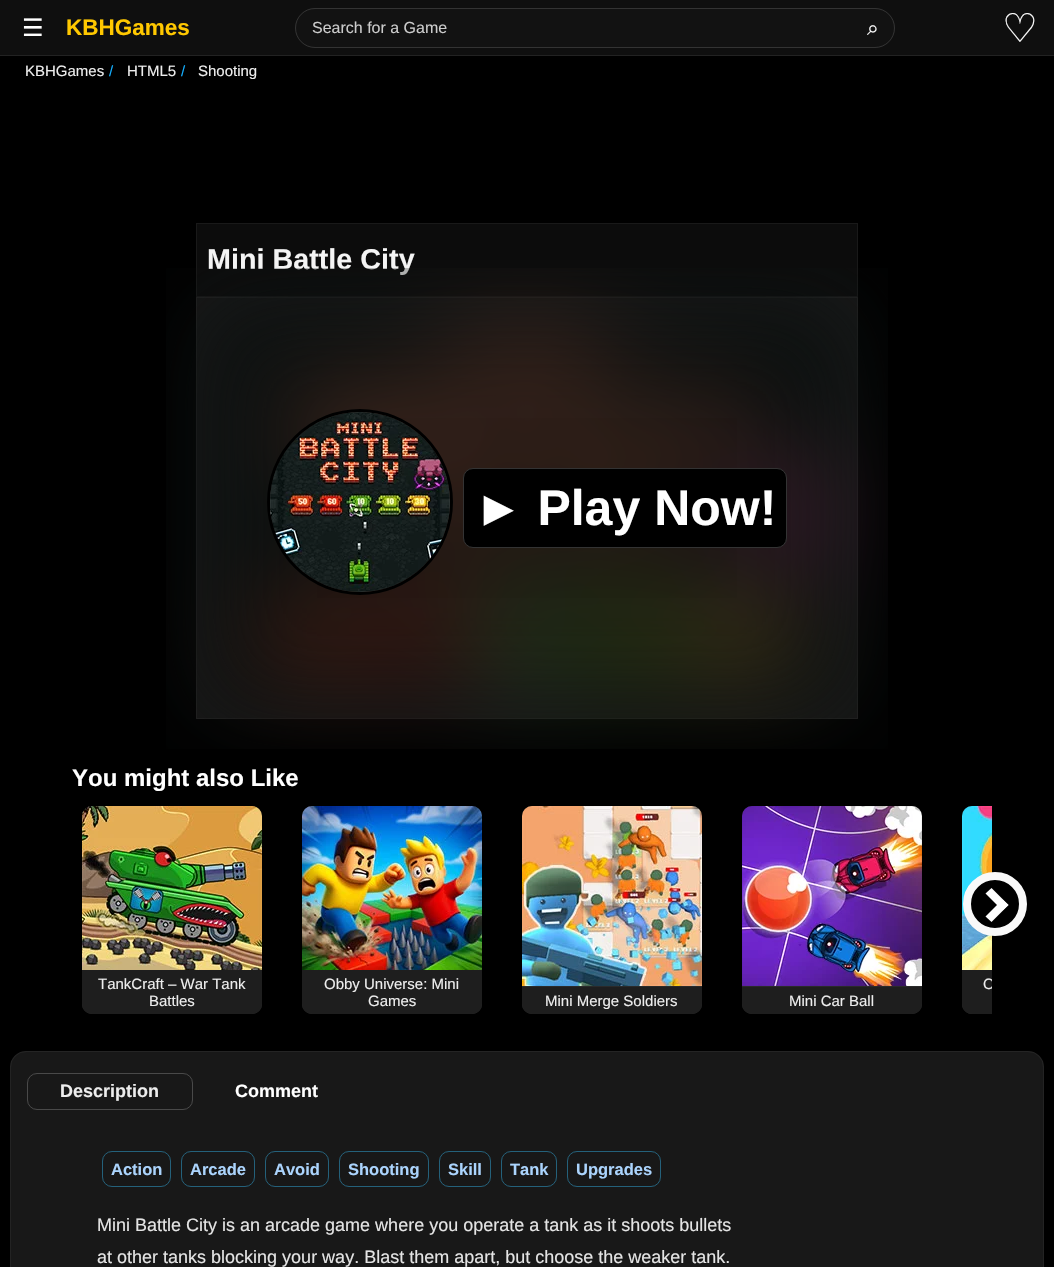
#include "include/core/SkBlurTypes.h"
#include "include/core/SkCanvas.h"
#include "include/core/SkData.h"
#include "include/core/SkFont.h"
#include "include/core/SkFontMgr.h"
#include "include/core/SkImage.h"
#include "include/core/SkMaskFilter.h"
#include "include/core/SkPaint.h"
#include "include/core/SkPathBuilder.h"
#include "include/core/SkTextBlob.h"
#include "include/effects/SkDashPathEffect.h"
#include "include/effects/SkGradientShader.h"
#include "include/utils/SkParsePath.h"

extern sk_sp<SkFontMgr> fontMgr;

void draw(SkCanvas* canvas) {
  SkPaint p;
  p.setAntiAlias(true);
  canvas->clear(SK_ColorBLACK);
  p.setColor(SkColorSetRGB(15, 15, 15));
  canvas->drawRect(SkRect::MakeLTRB(0, 0, 1054, 55), p);
  p.setColor(SkColorSetRGB(34, 34, 34));
  canvas->drawRect(SkRect::MakeLTRB(0, 55, 1054, 56), p);
  p.setColor(SkColorSetRGB(18, 18, 18));
  canvas->drawRoundRect(SkRect::MakeLTRB(295.5f, 8.5f, 894.5f, 47.5f), 19.5f, 19.5f, p);
  p.setStyle(SkPaint::kStroke_Style);
  p.setStrokeWidth(1);
  p.setColor(SkColorSetRGB(51, 51, 51));
  canvas->drawRoundRect(SkRect::MakeLTRB(295.5f, 8.5f, 894.5f, 47.5f), 19.5f, 19.5f, p);
  p.setStyle(SkPaint::kFill_Style);
  p.setColor(SkColorSetRGB(12, 12, 12));
  canvas->drawRect(SkRect::MakeLTRB(196.5f, 223.5f, 857.5f, 296.5f), p);
  p.setStyle(SkPaint::kStroke_Style);
  p.setColor(SkColorSetRGB(25, 25, 25));
  canvas->drawRect(SkRect::MakeLTRB(196.5f, 223.5f, 857.5f, 296.5f), p);
  p.setStyle(SkPaint::kFill_Style);
  p.setColor(SkColorSetRGB(24, 24, 24));
  canvas->drawRect(SkRect::MakeLTRB(196.5f, 297.5f, 857.5f, 718.5f), p);
  p.setStyle(SkPaint::kStroke_Style);
  p.setColor(SkColorSetRGB(36, 36, 36));
  canvas->drawRect(SkRect::MakeLTRB(196.5f, 297.5f, 857.5f, 718.5f), p);
  p.setStyle(SkPaint::kFill_Style);
  p.setColor(SkColorSetRGB(42, 42, 42));
  canvas->drawPath(SkPathBuilder().moveTo(972, 806).lineTo(992, 806).lineTo(992, 1014).lineTo(972, 1014).cubicTo(966.5f, 1014, 962, 1009.5f, 962, 1004).lineTo(962, 816).cubicTo(962, 810.5f, 966.5f, 806, 972, 806).close().detach(), p);
  canvas->drawImageRect(SkImages::DeferredFromEncodedData(SkData::MakeFromFileName("images/5.png")), SkRect::MakeLTRB(962, 806, 992, 970), SkSamplingOptions());
  p.setColor(SK_ColorBLACK);
  canvas->drawCircle(995, 904, 28, p);
  p.setStyle(SkPaint::kStroke_Style);
  p.setStrokeWidth(8);
  p.setColor(SkColorSetRGB(249, 249, 249));
  canvas->drawCircle(995, 904, 28, p);
  p.setStyle(SkPaint::kFill_Style);
  p.setColor(SK_ColorWHITE);
  canvas->drawPath(SkPathBuilder().moveTo(991.5f, 888).lineTo(1008.5f, 905).lineTo(1002.5f, 910.5f).lineTo(985.5f, 893.5f).close().detach(), p);
  canvas->drawPath(SkPathBuilder().moveTo(1002.5f, 899.5f).lineTo(1008.5f, 905).lineTo(991.5f, 922).lineTo(985.5f, 916.5f).close().detach(), p);
  p.setColor(SkColorSetRGB(42, 42, 42));
  canvas->drawRoundRect(SkRect::MakeLTRB(82, 806, 262, 1014), 10, 10, p);
  canvas->drawImageRect(SkImages::DeferredFromEncodedData(SkData::MakeFromFileName("images/3.png")), SkRect::MakeLTRB(82, 806, 262, 970), SkSamplingOptions());
  p.setColor(SkColorSetRGB(30, 30, 30));
  canvas->drawPath(SkPathBuilder().moveTo(82, 970).lineTo(262, 970).lineTo(262, 1004).cubicTo(262, 1009.5f, 257.5f, 1014, 252, 1014).lineTo(92, 1014).cubicTo(86.5f, 1014, 82, 1009.5f, 82, 1004).close().detach(), p);
  p.setColor(SkColorSetRGB(42, 42, 42));
  canvas->drawRoundRect(SkRect::MakeLTRB(302, 806, 482, 1014), 10, 10, p);
  canvas->drawImageRect(SkImages::DeferredFromEncodedData(SkData::MakeFromFileName("images/4.png")), SkRect::MakeLTRB(302, 806, 482, 970), SkSamplingOptions());
  p.setColor(SkColorSetRGB(30, 30, 30));
  canvas->drawPath(SkPathBuilder().moveTo(302, 970).lineTo(482, 970).lineTo(482, 1004).cubicTo(482, 1009.5f, 477.5f, 1014, 472, 1014).lineTo(312, 1014).cubicTo(306.5f, 1014, 302, 1009.5f, 302, 1004).close().detach(), p);
  canvas->drawPath(SkPathBuilder().moveTo(962, 970).lineTo(992, 970).lineTo(992, 1014).lineTo(972, 1014).cubicTo(966.5f, 1014, 962, 1009.5f, 962, 1004).close().detach(), p);
  p.setColor(SkColorSetRGB(42, 42, 42));
  canvas->drawRoundRect(SkRect::MakeLTRB(522, 806, 702, 1014), 10, 10, p);
  canvas->drawImageRect(SkImages::DeferredFromEncodedData(SkData::MakeFromFileName("images/6.png")), SkRect::MakeLTRB(522, 806, 702, 986), SkSamplingOptions());
  p.setColor(SkColorSetRGB(30, 30, 30));
  canvas->drawPath(SkPathBuilder().moveTo(522, 987).lineTo(702, 987).lineTo(702, 1004).cubicTo(702, 1009.5f, 697.5f, 1014, 692, 1014).lineTo(532, 1014).cubicTo(526.5f, 1014, 522, 1009.5f, 522, 1004).close().detach(), p);
  p.setColor(SkColorSetRGB(42, 42, 42));
  canvas->drawRoundRect(SkRect::MakeLTRB(742, 806, 922, 1014), 10, 10, p);
  canvas->drawImageRect(SkImages::DeferredFromEncodedData(SkData::MakeFromFileName("images/7.png")), SkRect::MakeLTRB(742, 806, 922, 986), SkSamplingOptions());
  p.setColor(SkColorSetRGB(30, 30, 30));
  canvas->drawPath(SkPathBuilder().moveTo(742, 987).lineTo(922, 987).lineTo(922, 1004).cubicTo(922, 1009.5f, 917.5f, 1014, 912, 1014).lineTo(752, 1014).cubicTo(746.5f, 1014, 742, 1009.5f, 742, 1004).close().detach(), p);
  p.setColor(SkColorSetRGB(24, 24, 24));
  canvas->drawRoundRect(SkRect::MakeLTRB(10, 1051, 1044, 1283), 16, 16, p);
  p.setStyle(SkPaint::kStroke_Style);
  p.setStrokeWidth(1);
  p.setColor(SkColorSetARGB(38, 101, 101, 101));
  canvas->drawRoundRect(SkRect::MakeLTRB(10.5f, 1051.5f, 1043.5f, 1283.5f), 15.5f, 15.5f, p);
  p.setColor(SkColorSetRGB(73, 73, 73));
  canvas->drawRoundRect(SkRect::MakeLTRB(27.5f, 1073.5f, 192.5f, 1109.5f), 9.5f, 9.5f, p);
  p.setColor(SkColorSetRGB(36, 97, 123));
  canvas->drawRoundRect(SkRect::MakeLTRB(102.5f, 1151.5f, 170.5f, 1186.5f), 9.5f, 9.5f, p);
  canvas->drawRoundRect(SkRect::MakeLTRB(181.5f, 1151.5f, 254.5f, 1186.5f), 9.5f, 9.5f, p);
  canvas->drawRoundRect(SkRect::MakeLTRB(265.5f, 1151.5f, 328.5f, 1186.5f), 9.5f, 9.5f, p);
  canvas->drawRoundRect(SkRect::MakeLTRB(339.5f, 1151.5f, 428.5f, 1186.5f), 9.5f, 9.5f, p);
  canvas->drawRoundRect(SkRect::MakeLTRB(439.5f, 1151.5f, 490.5f, 1186.5f), 9.5f, 9.5f, p);
  canvas->drawRoundRect(SkRect::MakeLTRB(501.5f, 1151.5f, 556.5f, 1186.5f), 9.5f, 9.5f, p);
  canvas->drawRoundRect(SkRect::MakeLTRB(567.5f, 1151.5f, 660.5f, 1186.5f), 9.5f, 9.5f, p);
  SkFont font1(fontMgr->matchFamilyStyle("DejaVu Sans", SkFontStyle::Normal()), 24);
  font1.setSubpixel(true);
  p.setStyle(SkPaint::kFill_Style);
  p.setColor(SK_ColorWHITE);
  canvas->drawString("☰", 22, 36, font1, p);
  SkFont font2(fontMgr->matchFamilyStyle("Liberation Sans", SkFontStyle::Bold()), 22.5f);
  font2.setSubpixel(true);
  p.setColor(SkColorSetRGB(255, 200, 0));
  canvas->drawString("KBHGames", 66, 35, font2, p);
  SkFont font3(fontMgr->matchFamilyStyle("Liberation Sans", SkFontStyle::Normal()), 16);
  font3.setSubpixel(true);
  p.setColor(SkColorSetRGB(203, 203, 203));
  canvas->drawString("Search for a Game", 312, 33, font3, p);
  SkFont font4(fontMgr->matchFamilyStyle("FreeSerif", SkFontStyle::Normal()), 21);
  font4.setSubpixel(true);
  p.setColor(SK_ColorWHITE);
  canvas->drawString("⌕", 867, 35, font4, p);
  SkFont font5(fontMgr->matchFamilyStyle("DejaVu Sans", SkFontStyle::Normal()), 40);
  font5.setSubpixel(true);
  canvas->drawString("♡", 1002, 42, font5, p);
  SkFont font6(fontMgr->matchFamilyStyle("Liberation Sans", SkFontStyle::Normal()), 15);
  font6.setSubpixel(true);
  p.setColor(SkColorSetRGB(237, 237, 237));
  canvas->drawString("KBHGames", 25, 76, font6, p);
  p.setColor(SkColorSetRGB(19, 174, 255));
  canvas->drawString("/", 109, 76, font6, p);
  p.setColor(SkColorSetRGB(237, 237, 237));
  canvas->drawString("HTML5", 127, 76, font6, p);
  p.setColor(SkColorSetRGB(19, 174, 255));
  canvas->drawString("/", 181, 76, font6, p);
  p.setColor(SkColorSetRGB(237, 237, 237));
  canvas->drawString("Shooting", 198, 76, font6, p);
  SkFont font7(fontMgr->matchFamilyStyle("Liberation Sans", SkFontStyle::Bold()), 28.75f);
  font7.setSubpixel(true);
  p.setColor(SkColorSetRGB(244, 244, 244));
  canvas->drawString("Mini Battle City", 207, 269, font7, p);
  canvas->drawImageRect(SkImages::DeferredFromEncodedData(SkData::MakeFromFileName("images/1.png")), SkRect::MakeLTRB(166, 268, 888, 749), SkSamplingOptions());
  p.setStyle(SkPaint::kStroke_Style);
  p.setStrokeWidth(3);
  p.setColor(SK_ColorBLACK);
  canvas->drawCircle(360, 502, 91.5f, p);
  canvas->drawImageRect(SkImages::DeferredFromEncodedData(SkData::MakeFromFileName("images/2.png")), SkRect::MakeLTRB(270, 412, 450, 592), SkSamplingOptions());
  p.setStyle(SkPaint::kFill_Style);
  canvas->drawRoundRect(SkRect::MakeLTRB(463.5f, 468.5f, 786.5f, 547.5f), 9.5f, 9.5f, p);
  p.setStyle(SkPaint::kStroke_Style);
  p.setStrokeWidth(1);
  p.setColor(SkColorSetRGB(51, 51, 51));
  canvas->drawRoundRect(SkRect::MakeLTRB(463.5f, 468.5f, 786.5f, 547.5f), 9.5f, 9.5f, p);
  SkFont font8(fontMgr->matchFamilyStyle("Liberation Sans", SkFontStyle::Bold()), 50);
  font8.setSubpixel(true);
  p.setStyle(SkPaint::kFill_Style);
  p.setColor(SK_ColorWHITE);
  canvas->drawString("► Play Now!", 474, 525, font8, p);
  SkFont font9(fontMgr->matchFamilyStyle("Liberation Sans", SkFontStyle::Bold()), 24);
  font9.setSubpixel(true);
  canvas->drawString("You might also Like", 72, 786, font9, p);
  p.setColor(SkColorSetRGB(237, 237, 237));
  canvas->drawString("TankCraft – War Tank", 98, 989, font6, p);
  canvas->drawString("Battles", 149, 1006, font6, p);
  canvas->drawString("Obby Universe: Mini", 324, 989, font6, p);
  canvas->drawString("Games", 368, 1006, font6, p);
  canvas->save();
  canvas->clipRect(SkRect::MakeLTRB(62, 802, 992, 1026));
  canvas->drawString("O", 983, 989, font6, p);
  canvas->restore();
  canvas->drawString("Mini Merge Soldiers", 545, 1006, font6, p);
  canvas->drawString("Mini Car Ball", 789, 1006, font6, p);
  SkFont font10(fontMgr->matchFamilyStyle("Liberation Sans", SkFontStyle::Bold()), 18);
  font10.setSubpixel(true);
  canvas->drawString("Description", 60, 1097, font10, p);
  p.setColor(SK_ColorWHITE);
  canvas->drawString("Comment", 235, 1097, font10, p);
  SkFont font11(fontMgr->matchFamilyStyle("Liberation Sans", SkFontStyle::Bold()), 16.5f);
  font11.setSubpixel(true);
  p.setColor(SkColorSetRGB(171, 212, 253));
  canvas->drawString("Action", 111, 1175, font11, p);
  canvas->drawString("Arcade", 190, 1175, font11, p);
  canvas->drawString("Avoid", 274, 1175, font11, p);
  canvas->drawString("Shooting", 348, 1175, font11, p);
  canvas->drawString("Skill", 448, 1175, font11, p);
  canvas->drawString("Tank", 510, 1175, font11, p);
  canvas->drawString("Upgrades", 576, 1175, font11, p);
  SkFont font12(fontMgr->matchFamilyStyle("Liberation Sans", SkFontStyle::Normal()), 18);
  font12.setSubpixel(true);
  p.setColor(SkColorSetRGB(228, 228, 228));
  canvas->drawString("Mini Battle City is an arcade game where you operate a tank as it shoots bullets", 97, 1231, font12, p);
  canvas->drawString("at other tanks blocking your way. Blast them apart, but choose the weaker tank.", 97, 1263, font12, p);
}
